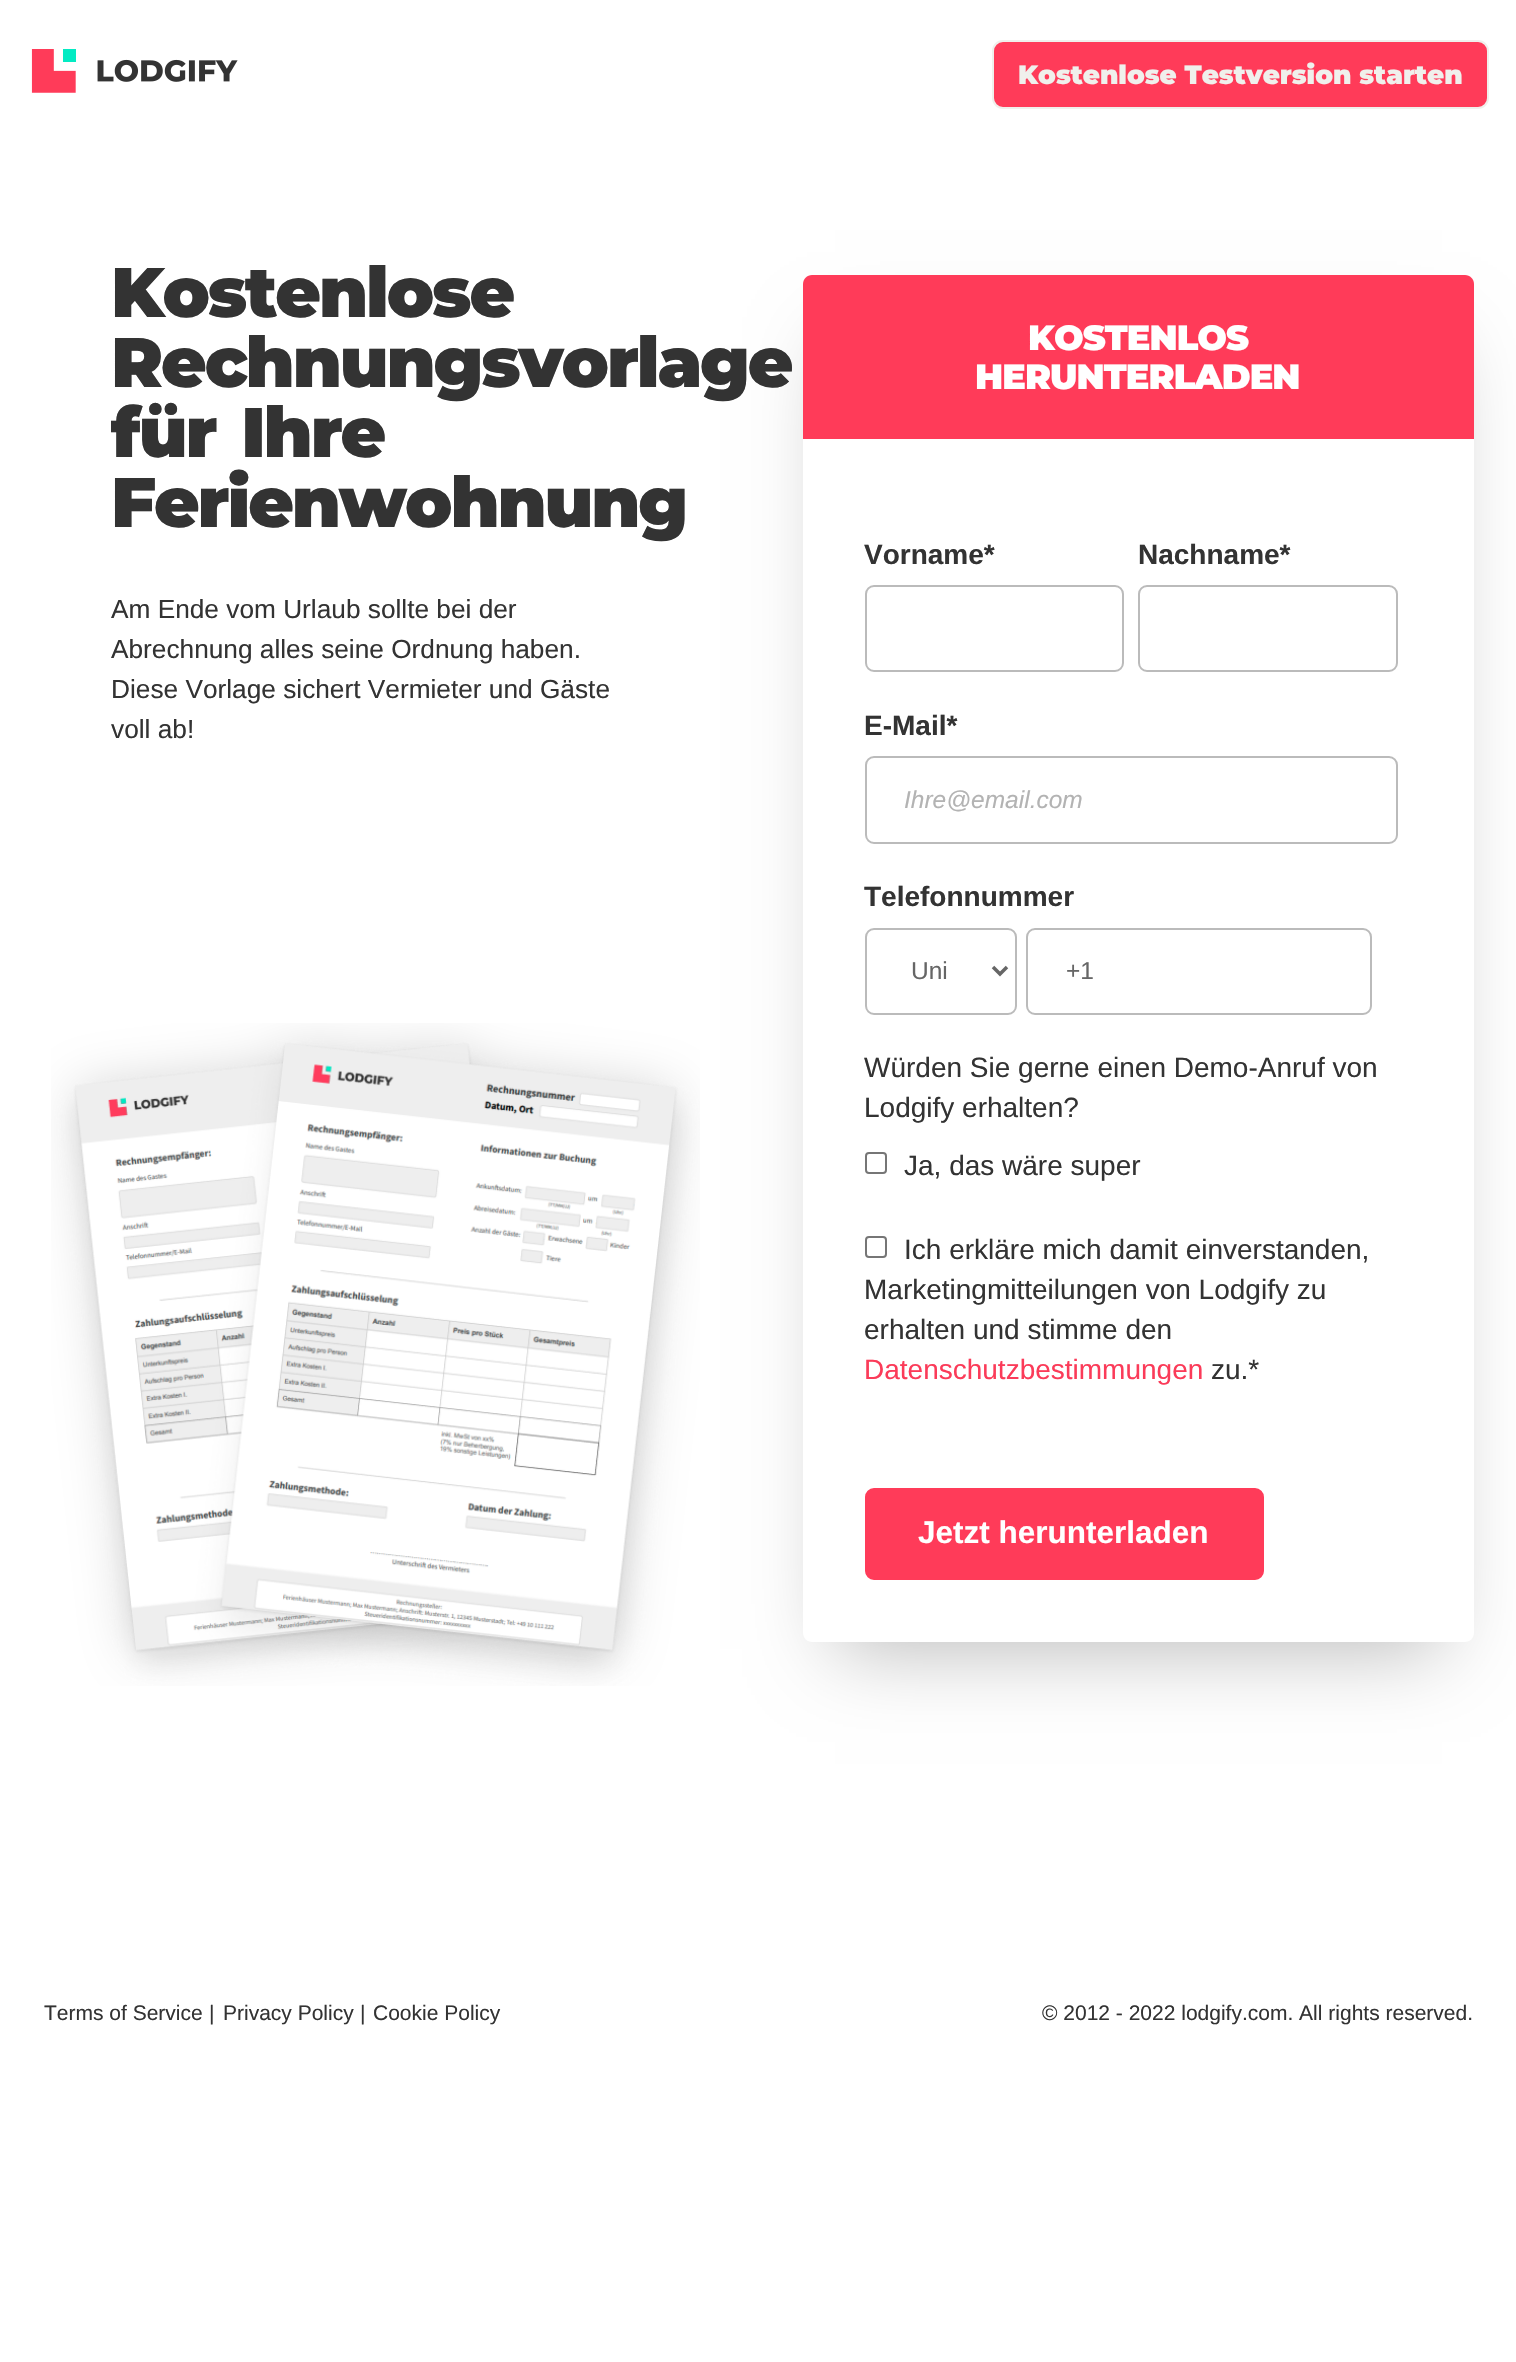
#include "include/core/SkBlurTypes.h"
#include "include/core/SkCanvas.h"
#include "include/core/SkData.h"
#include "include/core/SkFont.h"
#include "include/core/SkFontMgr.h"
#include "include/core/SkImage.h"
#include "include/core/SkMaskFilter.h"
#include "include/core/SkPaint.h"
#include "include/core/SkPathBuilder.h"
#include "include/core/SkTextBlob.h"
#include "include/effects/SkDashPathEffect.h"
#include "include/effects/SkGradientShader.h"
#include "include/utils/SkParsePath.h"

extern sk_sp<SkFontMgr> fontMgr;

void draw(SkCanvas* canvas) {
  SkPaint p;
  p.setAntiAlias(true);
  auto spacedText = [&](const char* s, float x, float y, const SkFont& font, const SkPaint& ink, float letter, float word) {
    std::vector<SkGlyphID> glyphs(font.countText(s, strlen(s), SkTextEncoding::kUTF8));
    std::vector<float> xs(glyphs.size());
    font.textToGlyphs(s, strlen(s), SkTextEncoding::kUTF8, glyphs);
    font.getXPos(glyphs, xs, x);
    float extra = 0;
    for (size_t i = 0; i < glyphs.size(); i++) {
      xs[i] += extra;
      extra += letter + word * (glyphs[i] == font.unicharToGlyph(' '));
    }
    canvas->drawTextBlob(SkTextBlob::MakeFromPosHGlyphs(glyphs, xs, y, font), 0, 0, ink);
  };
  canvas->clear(SK_ColorWHITE);
  canvas->drawImageRect(SkImages::DeferredFromEncodedData(SkData::MakeFromFileName("images/1.png")), SkRect::MakeLTRB(31, 49, 238, 93), SkSamplingOptions());
  p.setColor(SkColorSetRGB(255, 59, 89));
  canvas->drawRoundRect(SkRect::MakeLTRB(993, 41, 1488, 108), 10, 10, p);
  p.setStyle(SkPaint::kStroke_Style);
  p.setStrokeWidth(2);
  p.setColor(SkColorSetRGB(240, 240, 236));
  canvas->drawRoundRect(SkRect::MakeLTRB(993, 41, 1488, 108), 10, 10, p);
  canvas->drawImageRect(SkImages::DeferredFromEncodedData(SkData::MakeFromFileName("images/2.png")), SkRect::MakeLTRB(51, 1023, 700, 1686), SkSamplingOptions());
  p.setStyle(SkPaint::kFill_Style);
  p.setColor(SkColorSetARGB(69, 0, 0, 0));
  p.setMaskFilter(SkMaskFilter::MakeBlur(kNormal_SkBlurStyle, 38.5f));
  canvas->drawRect(SkRect::MakeLTRB(835, 345, 1442, 1649), p);
  p.setMaskFilter(nullptr);
  p.setColor(SkColorSetRGB(255, 59, 89));
  canvas->drawPath(SkPathBuilder().moveTo(812, 275).lineTo(1465, 275).cubicTo(1470, 275, 1474, 279, 1474, 284).lineTo(1474, 439).lineTo(803, 439).lineTo(803, 284).cubicTo(803, 279, 807, 275, 812, 275).close().detach(), p);
  p.setColor(SK_ColorWHITE);
  canvas->drawPath(SkPathBuilder().moveTo(803, 439).lineTo(1474, 439).lineTo(1474, 1633).cubicTo(1474, 1638, 1470, 1642, 1465, 1642).lineTo(812, 1642).cubicTo(807, 1642, 803, 1638, 803, 1633).close().detach(), p);
  p.setStyle(SkPaint::kStroke_Style);
  p.setColor(SkColorSetRGB(187, 187, 187));
  canvas->drawRoundRect(SkRect::MakeLTRB(866, 586, 1123, 671), 8, 8, p);
  canvas->drawRoundRect(SkRect::MakeLTRB(1139, 586, 1397, 671), 8, 8, p);
  canvas->drawRoundRect(SkRect::MakeLTRB(866, 757, 1397, 843), 8, 8, p);
  canvas->drawRoundRect(SkRect::MakeLTRB(866, 929, 1016, 1014), 8, 8, p);
  p.setStrokeWidth(3.5f);
  p.setColor(SkColorSetRGB(102, 102, 102));
  canvas->drawPath(SkPathBuilder().moveTo(993, 967).lineTo(1000, 974).lineTo(1007, 967).detach(), p);
  p.setStrokeWidth(2);
  p.setColor(SkColorSetRGB(187, 187, 187));
  canvas->drawRoundRect(SkRect::MakeLTRB(1027, 929, 1371, 1014), 8, 8, p);
  p.setColor(SkColorSetRGB(118, 118, 118));
  canvas->drawRoundRect(SkRect::MakeLTRB(866, 1153, 886, 1173), 3, 3, p);
  canvas->drawRoundRect(SkRect::MakeLTRB(866, 1237, 886, 1257), 3, 3, p);
  p.setStyle(SkPaint::kFill_Style);
  p.setColor(SkColorSetRGB(255, 59, 89));
  canvas->drawRoundRect(SkRect::MakeLTRB(866, 1489, 1263, 1579), 8, 8, p);
  p.setStyle(SkPaint::kStroke_Style);
  canvas->drawRoundRect(SkRect::MakeLTRB(866, 1489, 1263, 1579), 8, 8, p);
  SkFont font1(fontMgr->matchFamilyStyle("Montserrat", SkFontStyle(900, SkFontStyle::kNormal_Width, SkFontStyle::kUpright_Slant)), 26.25f);
  font1.setSubpixel(true);
  p.setStyle(SkPaint::kFill_Style);
  p.setColor(SkColorSetRGB(240, 240, 236));
  canvas->drawString("Kostenlose Testversion starten", 1018, 84, font1, p);
  SkFont font2(fontMgr->matchFamilyStyle("Montserrat", SkFontStyle(900, SkFontStyle::kNormal_Width, SkFontStyle::kUpright_Slant)), 70);
  font2.setSubpixel(true);
  p.setColor(SkColorSetRGB(51, 51, 51));
  spacedText("Kostenlose", 111, 317, font2, p, -2.1f, 0);
  spacedText("Rechnungsvorlage", 111, 387, font2, p, -2.1f, 0);
  spacedText("für Ihre", 111, 457, font2, p, -2.1f, 7);
  spacedText("Ferienwohnung", 111, 527, font2, p, -2.1f, 0);
  SkFont font3(fontMgr->matchFamilyStyle("Liberation Sans", SkFontStyle::Normal()), 26.25f);
  font3.setSubpixel(true);
  canvas->drawString("Am Ende vom Urlaub sollte bei der", 111, 618, font3, p);
  canvas->drawString("Abrechnung alles seine Ordnung haben.", 111, 658, font3, p);
  canvas->drawString("Diese Vorlage sichert Vermieter und Gäste", 111, 698, font3, p);
  canvas->drawString("voll ab!", 111, 738, font3, p);
  SkFont font4(fontMgr->matchFamilyStyle("Montserrat", SkFontStyle(900, SkFontStyle::kNormal_Width, SkFontStyle::kUpright_Slant)), 35);
  font4.setSubpixel(true);
  p.setColor(SK_ColorWHITE);
  spacedText("KOSTENLOS", 1028, 350, font4, p, -0.9f, 0);
  spacedText("HERUNTERLADEN", 975, 389, font4, p, -0.9f, 0);
  SkFont font5(fontMgr->matchFamilyStyle("Liberation Sans", SkFontStyle::Bold()), 28);
  font5.setSubpixel(true);
  p.setColor(SkColorSetRGB(51, 51, 51));
  canvas->drawString("Vorname*", 864, 564, font5, p);
  canvas->drawString("Nachname*", 1138, 564, font5, p);
  canvas->drawString("E-Mail*", 864, 735, font5, p);
  SkFont font6(fontMgr->matchFamilyStyle("Liberation Sans", SkFontStyle::Italic()), 24.5f);
  font6.setSubpixel(true);
  p.setColor(SkColorSetRGB(179, 179, 179));
  canvas->drawString("Ihre@email.com", 904, 808, font6, p);
  p.setColor(SkColorSetRGB(51, 51, 51));
  canvas->drawString("Telefonnummer", 864, 906, font5, p);
  SkFont font7(fontMgr->matchFamilyStyle("Liberation Sans", SkFontStyle::Normal()), 24.5f);
  font7.setSubpixel(true);
  p.setColor(SkColorSetRGB(102, 102, 102));
  canvas->drawString("Uni", 911, 979, font7, p);
  canvas->drawString("+1", 1066, 979, font7, p);
  SkFont font8(fontMgr->matchFamilyStyle("Liberation Sans", SkFontStyle::Normal()), 28);
  font8.setSubpixel(true);
  p.setColor(SkColorSetRGB(51, 51, 51));
  canvas->drawString("Würden Sie gerne einen Demo-Anruf von", 864, 1077, font8, p);
  canvas->drawString("Lodgify erhalten?", 864, 1117, font8, p);
  canvas->drawString("Ja, das wäre super", 904, 1175, font8, p);
  canvas->drawString("Ich erkläre mich damit einverstanden,", 904, 1259, font8, p);
  canvas->drawString("Marketingmitteilungen von Lodgify zu", 864, 1299, font8, p);
  canvas->drawString("erhalten und stimme den", 864, 1339, font8, p);
  p.setColor(SkColorSetRGB(251, 59, 89));
  canvas->drawString("Datenschutzbestimmungen", 864, 1379, font8, p);
  p.setColor(SkColorSetRGB(51, 51, 51));
  canvas->drawString("zu.*", 1211, 1379, font8, p);
  SkFont font9(fontMgr->matchFamilyStyle("Liberation Sans", SkFontStyle::Bold()), 31.5f);
  font9.setSubpixel(true);
  p.setColor(SK_ColorWHITE);
  canvas->drawString("Jetzt herunterladen", 918, 1543, font9, p);
  SkFont font10(fontMgr->matchFamilyStyle("Liberation Sans", SkFontStyle::Normal()), 21);
  font10.setSubpixel(true);
  p.setColor(SkColorSetRGB(51, 51, 51));
  canvas->drawString("Terms of Service", 44, 2020, font10, p);
  canvas->drawString("|", 209, 2020, font10, p);
  canvas->drawString("Privacy Policy", 223, 2020, font10, p);
  canvas->drawString("|", 360, 2020, font10, p);
  canvas->drawString("Cookie Policy", 373, 2020, font10, p);
  canvas->drawString("© 2012 - 2022 lodgify.com. All rights reserved.", 1042, 2020, font10, p);
}
